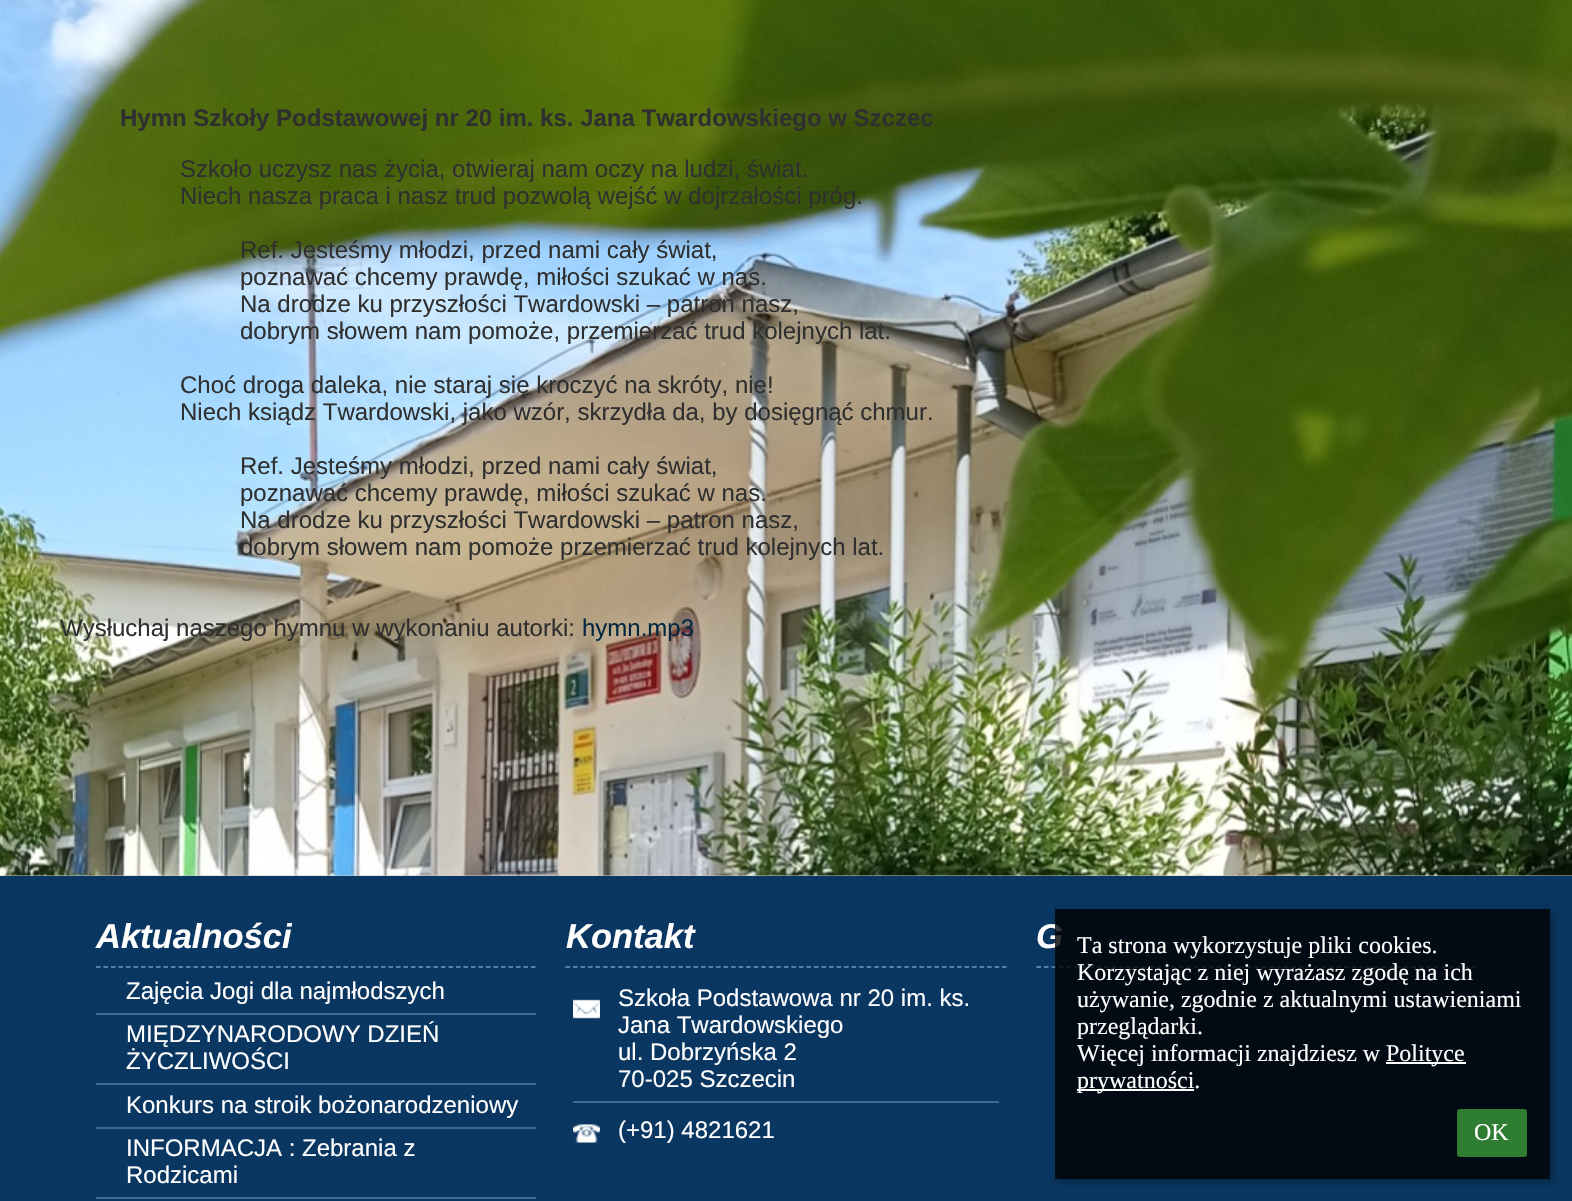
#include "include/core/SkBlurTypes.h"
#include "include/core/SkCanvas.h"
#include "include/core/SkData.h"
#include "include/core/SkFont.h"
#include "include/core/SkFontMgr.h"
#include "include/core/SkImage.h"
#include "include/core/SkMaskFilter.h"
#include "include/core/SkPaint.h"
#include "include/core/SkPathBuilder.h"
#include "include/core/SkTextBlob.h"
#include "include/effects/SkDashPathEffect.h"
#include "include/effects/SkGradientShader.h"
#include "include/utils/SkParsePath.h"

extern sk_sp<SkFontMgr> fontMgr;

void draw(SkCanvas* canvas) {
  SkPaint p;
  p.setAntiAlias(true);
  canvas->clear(SkColorSetRGB(9, 55, 98));
  p.setColor(SkColorSetRGB(205, 205, 205));
  canvas->drawRect(SkRect::MakeLTRB(0, 875, 1572, 876), p);
  canvas->drawImageRect(SkImages::DeferredFromEncodedData(SkData::MakeFromFileName("images/1.png")), SkRect::MakeLTRB(0, 0, 1572, 876), SkSamplingOptions());
  p.setStyle(SkPaint::kStroke_Style);
  p.setStrokeWidth(1.5f);
  p.setColor(SkColorSetRGB(109, 155, 198));
  p.setPathEffect(SkDashPathEffect::Make({{4.5f, 3}}, 0));
  canvas->drawPath(SkPathBuilder().moveTo(96, 967).lineTo(535.5f, 967).detach(), p);
  p.setPathEffect(nullptr);
  p.setStyle(SkPaint::kFill_Style);
  p.setColor(SkColorSetRGB(59, 105, 148));
  canvas->drawRect(SkRect::MakeLTRB(96, 1013, 536, 1015), p);
  canvas->drawRect(SkRect::MakeLTRB(96, 1083, 536, 1085), p);
  canvas->drawRect(SkRect::MakeLTRB(96, 1127, 536, 1129), p);
  canvas->drawRect(SkRect::MakeLTRB(96, 1197, 536, 1199), p);
  p.setStyle(SkPaint::kStroke_Style);
  p.setColor(SkColorSetRGB(109, 155, 198));
  p.setPathEffect(SkDashPathEffect::Make({{4.5f, 3.03f}}, 0));
  canvas->drawPath(SkPathBuilder().moveTo(565.5f, 967).lineTo(1006.5f, 967).detach(), p);
  p.setPathEffect(nullptr);
  canvas->drawImageRect(SkImages::DeferredFromEncodedData(SkData::MakeFromFileName("images/2.png")), SkRect::MakeLTRB(573, 999, 600, 1019), SkSamplingOptions());
  p.setStyle(SkPaint::kFill_Style);
  p.setColor(SkColorSetRGB(59, 105, 148));
  canvas->drawRect(SkRect::MakeLTRB(573, 1101, 999, 1103), p);
  canvas->drawImageRect(SkImages::DeferredFromEncodedData(SkData::MakeFromFileName("images/3.png")), SkRect::MakeLTRB(573, 1124, 600, 1143), SkSamplingOptions());
  p.setStyle(SkPaint::kStroke_Style);
  p.setColor(SkColorSetRGB(109, 155, 198));
  p.setPathEffect(SkDashPathEffect::Make({{4.5f, 3}}, 0));
  canvas->drawPath(SkPathBuilder().moveTo(1036.5f, 967).lineTo(1476, 967).detach(), p);
  p.setPathEffect(nullptr);
  canvas->save();
  canvas->clipPath(SkPathBuilder(SkPathFillType::kEvenOdd).moveTo(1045, 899).lineTo(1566, 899).lineTo(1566, 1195).lineTo(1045, 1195).close().moveTo(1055, 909).lineTo(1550, 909).lineTo(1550, 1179).lineTo(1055, 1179).close().detach(), true);
  p.setStyle(SkPaint::kFill_Style);
  p.setColor(SkColorSetARGB(89, 0, 0, 0));
  p.setMaskFilter(SkMaskFilter::MakeBlur(kNormal_SkBlurStyle, 4));
  canvas->drawRect(SkRect::MakeLTRB(1058, 912, 1553, 1182), p);
  p.setMaskFilter(nullptr);
  canvas->restore();
  SkFont font1(fontMgr->matchFamilyStyle("Liberation Sans", SkFontStyle::Bold()), 24);
  font1.setSubpixel(true);
  p.setColor(SkColorSetRGB(47, 47, 47));
  canvas->drawString("Hymn Szkoły Podstawowej nr 20 im. ks. Jana Twardowskiego w Szczec", 120, 126, font1, p);
  SkFont font2(fontMgr->matchFamilyStyle("Liberation Sans", SkFontStyle::Normal()), 24);
  font2.setSubpixel(true);
  canvas->drawString("Szkoło uczysz nas życia, otwieraj nam oczy na ludzi, świat.", 180, 177, font2, p);
  canvas->drawString("Niech nasza praca i nasz trud pozwolą wejść w dojrzałości próg.", 180, 204, font2, p);
  canvas->drawString("Ref. Jesteśmy młodzi, przed nami cały świat,", 240, 258, font2, p);
  canvas->drawString("poznawać chcemy prawdę, miłości szukać w nas.", 240, 285, font2, p);
  canvas->drawString("Na drodze ku przyszłości Twardowski – patron nasz,", 240, 312, font2, p);
  canvas->drawString("dobrym słowem nam pomoże, przemierzać trud kolejnych lat.", 240, 339, font2, p);
  canvas->drawString("Choć droga daleka, nie staraj się kroczyć na skróty, nie!", 180, 393, font2, p);
  canvas->drawString("Niech ksiądz Twardowski, jako wzór, skrzydła da, by dosięgnąć chmur.", 180, 420, font2, p);
  canvas->drawString("Ref. Jesteśmy młodzi, przed nami cały świat,", 240, 474, font2, p);
  canvas->drawString("poznawać chcemy prawdę, miłości szukać w nas.", 240, 501, font2, p);
  canvas->drawString("Na drodze ku przyszłości Twardowski – patron nasz,", 240, 528, font2, p);
  canvas->drawString("dobrym słowem nam pomoże przemierzać trud kolejnych lat.", 240, 555, font2, p);
  canvas->drawString("Wysłuchaj naszego hymnu w wykonaniu autorki:", 60, 636, font2, p);
  p.setColor(SkColorSetRGB(4, 40, 66));
  canvas->drawString("hymn.mp3", 582, 636, font2, p);
  SkFont font3(fontMgr->matchFamilyStyle("Liberation Sans", SkFontStyle::BoldItalic()), 34.5f);
  font3.setSubpixel(true);
  p.setColor(SkColorSetRGB(255, 254, 254));
  canvas->drawString("Aktualności", 96, 948, font3, p);
  canvas->drawString("Zajęcia Jogi dla najmłodszych", 126, 999, font2, p);
  canvas->drawString("MIĘDZYNARODOWY DZIEŃ", 126, 1042, font2, p);
  canvas->drawString("ŻYCZLIWOŚCI", 126, 1069, font2, p);
  canvas->drawString("Konkurs na stroik bożonarodzeniowy", 126, 1113, font2, p);
  canvas->drawString("INFORMACJA : Zebrania z", 126, 1156, font2, p);
  canvas->drawString("Rodzicami", 126, 1183, font2, p);
  canvas->drawString("Kontakt", 566, 948, font3, p);
  canvas->drawString("Szkoła Podstawowa nr 20 im. ks.", 618, 1006, font2, p);
  canvas->drawString("Jana Twardowskiego", 618, 1033, font2, p);
  canvas->drawString("ul. Dobrzyńska 2", 618, 1060, font2, p);
  canvas->drawString("70-025 Szczecin", 618, 1087, font2, p);
  canvas->drawString("(+91) 4821621", 618, 1138, font2, p);
  canvas->drawString("G", 1036, 948, font3, p);
  p.setColor(SkColorSetARGB(204, 0, 0, 0));
  canvas->drawRect(SkRect::MakeLTRB(1055, 909, 1550, 1179), p);
  SkFont font4(fontMgr->matchFamilyStyle("Liberation Serif", SkFontStyle::Normal()), 24);
  font4.setSubpixel(true);
  p.setColor(SkColorSetRGB(255, 254, 254));
  canvas->drawString("Ta strona wykorzystuje pliki cookies.", 1077, 953, font4, p);
  canvas->drawString("Korzystając z niej wyrażasz zgodę na ich", 1077, 980, font4, p);
  canvas->drawString("używanie, zgodnie z aktualnymi ustawieniami", 1077, 1007, font4, p);
  canvas->drawString("przeglądarki.", 1077, 1034, font4, p);
  canvas->drawString("Więcej informacji znajdziesz w", 1077, 1061, font4, p);
  p.setColor(SK_ColorWHITE);
  canvas->drawRect(SkRect::MakeLTRB(1386, 1062, 1466, 1064), p);
  p.setColor(SkColorSetRGB(255, 254, 254));
  canvas->drawString("Polityce", 1386, 1061, font4, p);
  p.setColor(SK_ColorWHITE);
  canvas->drawRect(SkRect::MakeLTRB(1077, 1089, 1194, 1091), p);
  p.setColor(SkColorSetRGB(255, 254, 254));
  canvas->drawString("prywatności.", 1077, 1088, font4, p);
  p.setColor(SkColorSetRGB(46, 125, 50));
  canvas->drawRoundRect(SkRect::MakeLTRB(1457, 1109, 1527, 1157), 3, 3, p);
  p.setColor(SkColorSetRGB(255, 254, 254));
  canvas->drawString("OK", 1474, 1140, font4, p);
}
